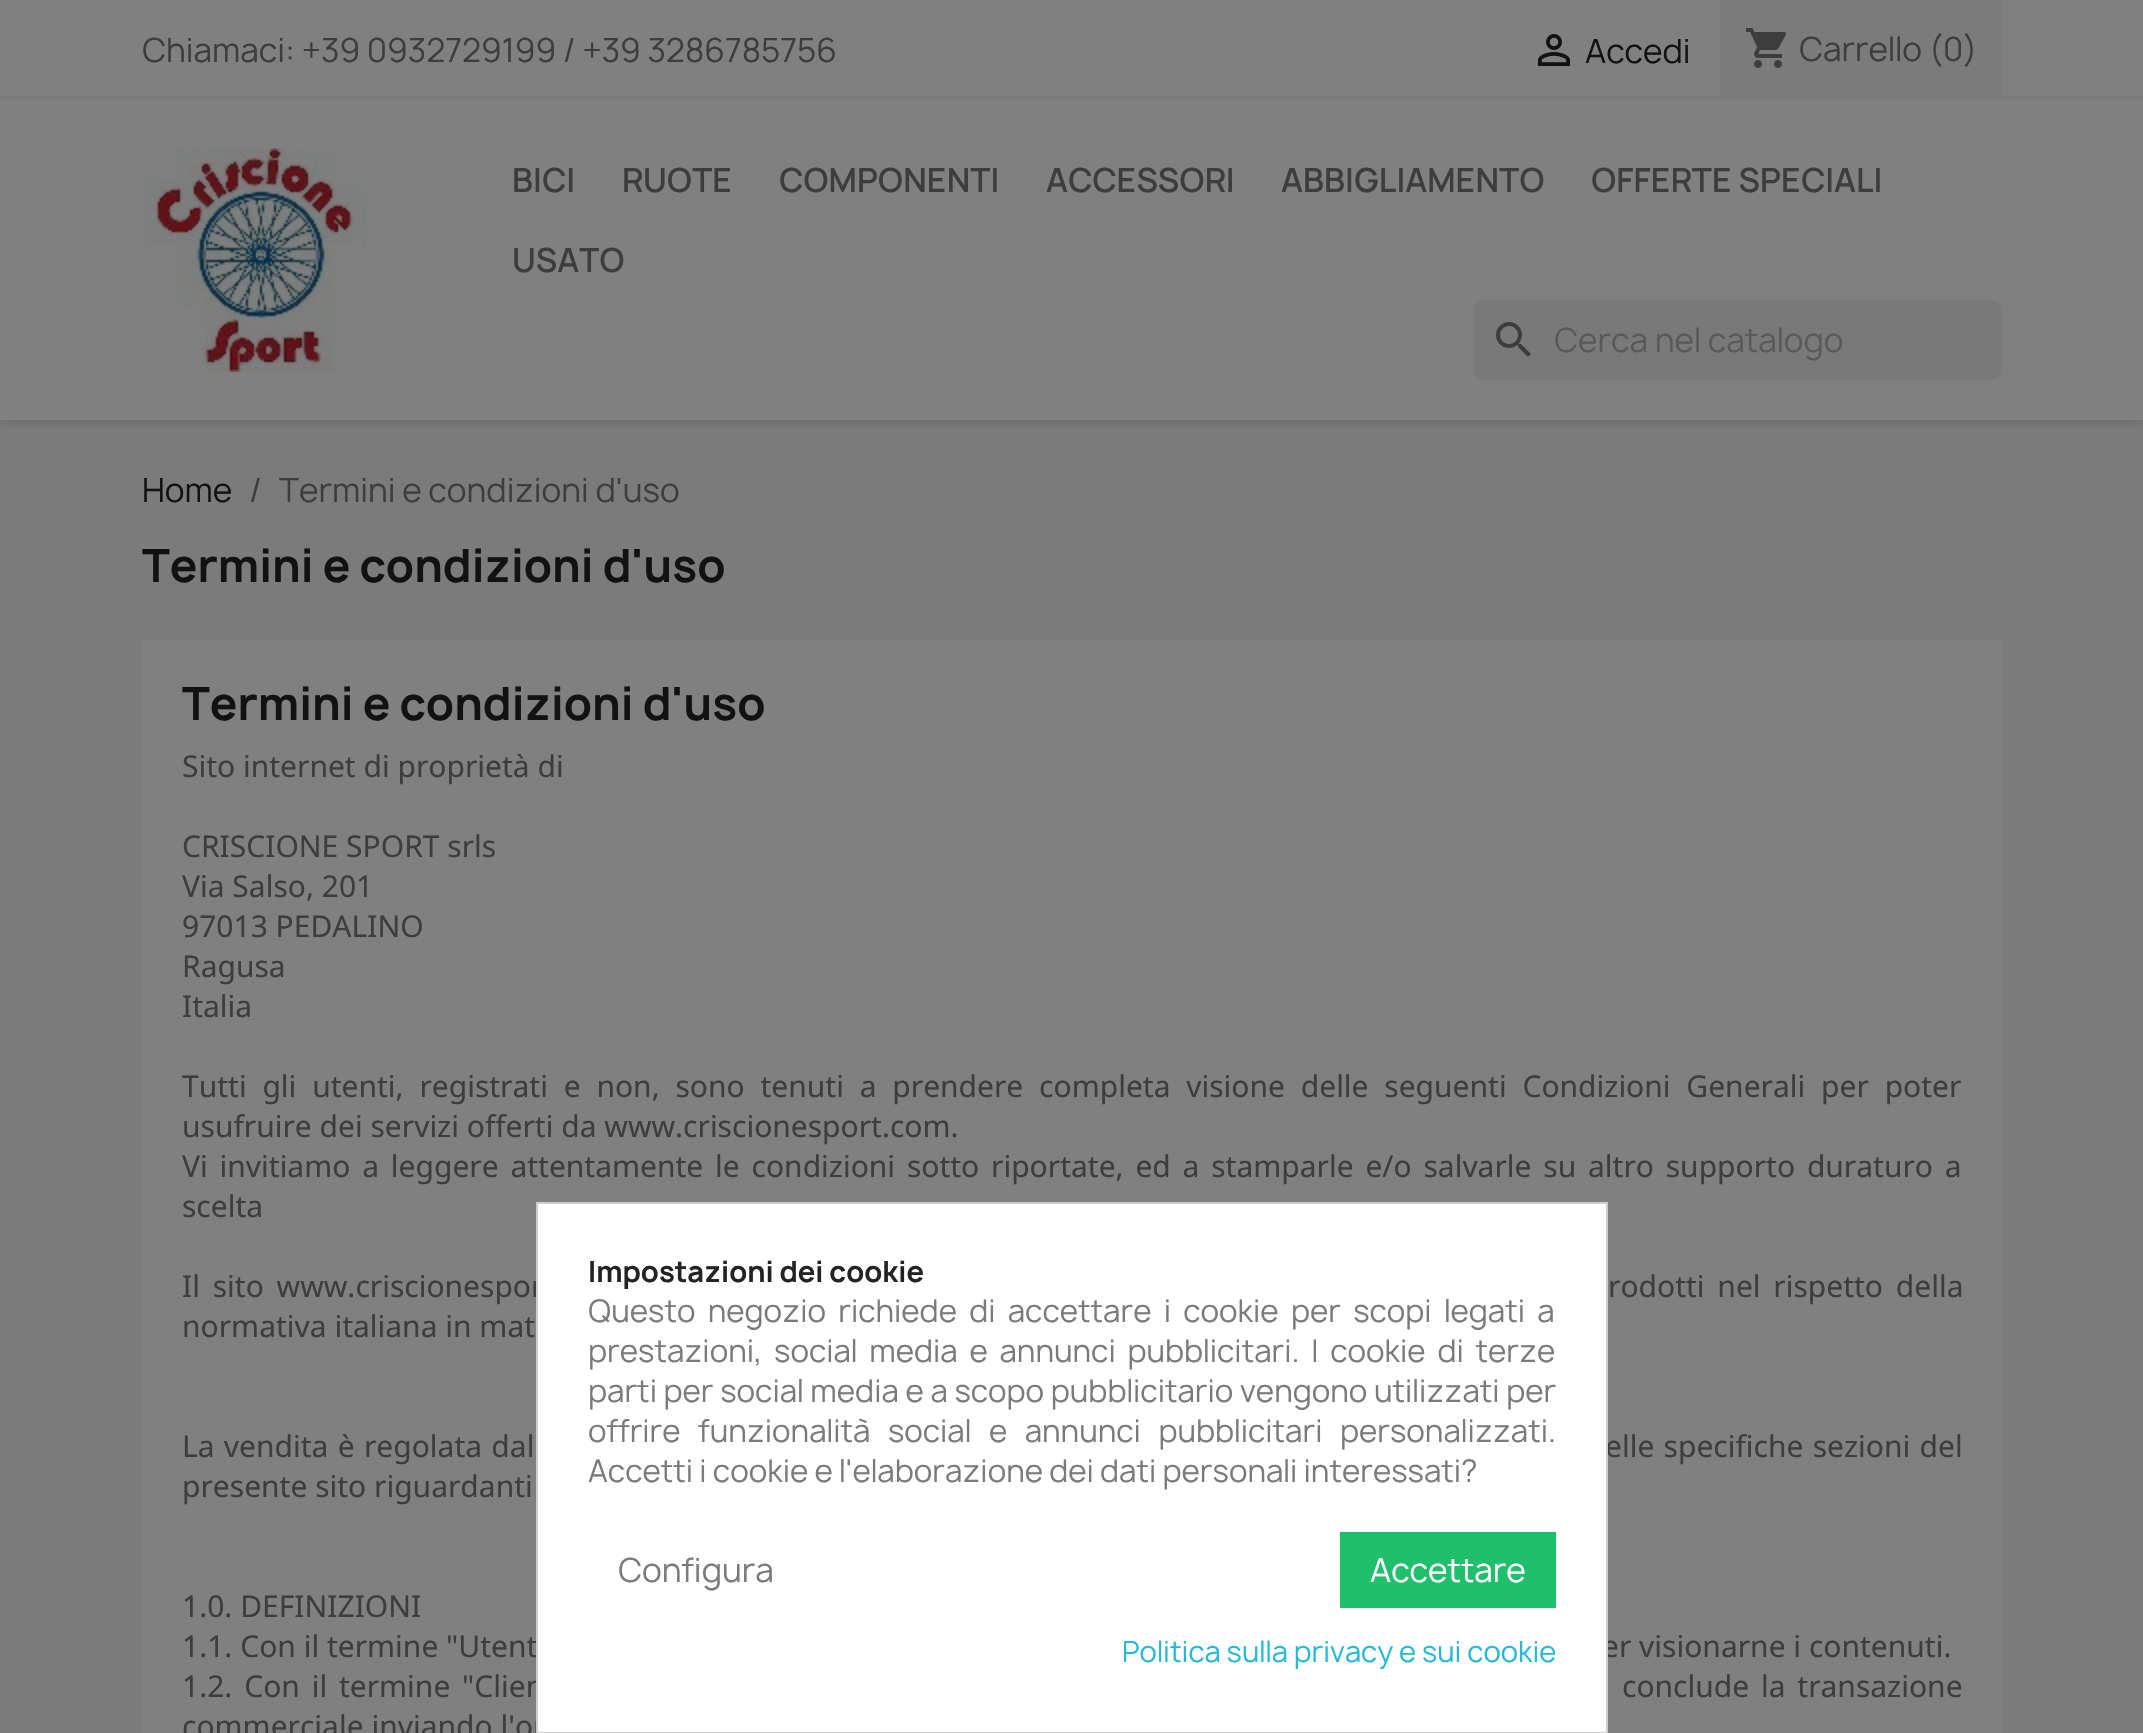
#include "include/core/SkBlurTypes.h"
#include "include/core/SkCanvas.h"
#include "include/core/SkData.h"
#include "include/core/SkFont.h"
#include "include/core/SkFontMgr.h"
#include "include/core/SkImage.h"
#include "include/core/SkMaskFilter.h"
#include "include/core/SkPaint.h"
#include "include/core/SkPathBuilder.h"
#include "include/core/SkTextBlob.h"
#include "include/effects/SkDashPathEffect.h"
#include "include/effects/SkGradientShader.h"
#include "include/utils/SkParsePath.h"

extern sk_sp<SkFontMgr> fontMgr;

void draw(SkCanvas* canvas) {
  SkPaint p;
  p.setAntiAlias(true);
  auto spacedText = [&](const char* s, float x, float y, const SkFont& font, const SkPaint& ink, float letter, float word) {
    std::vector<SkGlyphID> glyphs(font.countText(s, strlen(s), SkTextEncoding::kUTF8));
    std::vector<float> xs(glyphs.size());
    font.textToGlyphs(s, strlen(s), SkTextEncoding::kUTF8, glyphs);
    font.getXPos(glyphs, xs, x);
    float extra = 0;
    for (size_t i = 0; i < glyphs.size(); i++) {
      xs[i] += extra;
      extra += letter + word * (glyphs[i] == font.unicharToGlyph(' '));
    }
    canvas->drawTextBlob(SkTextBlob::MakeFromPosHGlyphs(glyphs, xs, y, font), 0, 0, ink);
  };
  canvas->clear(SkColorSetRGB(128, 128, 128));
  p.setColor(SkColorSetRGB(123, 123, 123));
  canvas->drawRect(SkRect::MakeLTRB(0, 420, 2143, 1733), p);
  canvas->save();
  canvas->clipRect(SkRect::MakeLTRB(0, 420, 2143, 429));
  p.setColor(SkColorSetARGB(28, 0, 0, 0));
  p.setMaskFilter(SkMaskFilter::MakeBlur(kNormal_SkBlurStyle, 5));
  canvas->drawRect(SkRect::MakeLTRB(0, 4, 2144, 424), p);
  p.setMaskFilter(nullptr);
  canvas->restore();
  p.setColor(SkColorSetRGB(123, 123, 123));
  canvas->drawRect(SkRect::MakeLTRB(0, 96, 2143, 100), p);
  canvas->drawImageRect(SkImages::DeferredFromEncodedData(SkData::MakeFromFileName("images/1.png")), SkRect::MakeLTRB(1537, 34, 1571, 66), SkSamplingOptions());
  canvas->drawRect(SkRect::MakeLTRB(1720, 0, 2002, 96), p);
  canvas->drawImageRect(SkImages::DeferredFromEncodedData(SkData::MakeFromFileName("images/2.png")), SkRect::MakeLTRB(1746, 28, 1786, 68), SkSamplingOptions());
  canvas->drawImageRect(SkImages::DeferredFromEncodedData(SkData::MakeFromFileName("images/3.png")), SkRect::MakeLTRB(142, 148, 366, 372), SkSamplingOptions());
  p.setColor(SkColorSetRGB(121, 121, 121));
  canvas->drawRoundRect(SkRect::MakeLTRB(1474, 300, 2002, 380), 10, 10, p);
  canvas->drawImageRect(SkImages::DeferredFromEncodedData(SkData::MakeFromFileName("images/4.png")), SkRect::MakeLTRB(1496, 322, 1531, 357), SkSamplingOptions());
  p.setColor(SkColorSetRGB(128, 128, 128));
  canvas->drawRect(SkRect::MakeLTRB(142, 640, 2002, 1733), p);
  SkFont font1(fontMgr->matchFamilyStyle("Manrope", SkFontStyle::Normal()), 32);
  font1.setSubpixel(true);
  p.setColor(SkColorSetRGB(61, 61, 61));
  canvas->drawString("Chiamaci: +39 0932729199 / +39 3286785756", 142, 62, font1, p);
  p.setColor(SkColorSetRGB(18, 18, 18));
  canvas->drawString("Accedi", 1585, 63, font1, p);
  p.setColor(SkColorSetRGB(61, 61, 61));
  canvas->drawString("Carrello (0)", 1799, 61, font1, p);
  SkFont font2(fontMgr->matchFamilyStyle("Manrope", SkFontStyle(600, SkFontStyle::kNormal_Width, SkFontStyle::kUpright_Slant)), 32);
  font2.setSubpixel(true);
  canvas->drawString("BICI", 512, 192, font2, p);
  canvas->drawString("RUOTE", 622, 192, font2, p);
  canvas->drawString("COMPONENTI", 779, 192, font2, p);
  canvas->drawString("ACCESSORI", 1046, 192, font2, p);
  canvas->drawString("ABBIGLIAMENTO", 1281, 192, font2, p);
  canvas->drawString("OFFERTE SPECIALI", 1591, 192, font2, p);
  canvas->drawString("USATO", 512, 272, font2, p);
  p.setColor(SkColorSetRGB(89, 89, 89));
  canvas->drawString("Cerca nel catalogo", 1554, 352, font1, p);
  p.setColor(SkColorSetRGB(18, 18, 18));
  canvas->drawString("Home", 142, 502, font1, p);
  p.setColor(SkColorSetRGB(61, 61, 61));
  canvas->drawString("/", 249, 502, font1, p);
  canvas->drawString("Termini e condizioni d'uso", 279, 502, font1, p);
  SkFont font3(fontMgr->matchFamilyStyle("Manrope", SkFontStyle::Bold()), 44);
  font3.setSubpixel(true);
  p.setColor(SkColorSetRGB(18, 18, 18));
  canvas->drawString("Termini e condizioni d'uso", 142, 582, font3, p);
  canvas->drawString("Termini e condizioni d'uso", 182, 720, font3, p);
  SkFont font4(fontMgr->matchFamilyStyle("Noto Sans", SkFontStyle::Normal()), 30);
  font4.setSubpixel(true);
  p.setColor(SkColorSetRGB(61, 61, 61));
  canvas->drawString("Sito internet di proprietà di", 182, 777, font4, p);
  canvas->drawString("CRISCIONE SPORT srls", 182, 857, font4, p);
  canvas->drawString("Via Salso, 201", 182, 897, font4, p);
  canvas->drawString("97013 PEDALINO", 182, 937, font4, p);
  canvas->drawString("Ragusa", 182, 977, font4, p);
  canvas->drawString("Italia", 182, 1017, font4, p);
  spacedText("Tutti gli utenti, registrati e non, sono tenuti a prendere completa visione delle seguenti Condizioni Generali per poter", 182, 1097, font4, p, 0, 8);
  canvas->drawString("usufruire dei servizi offerti da www.criscionesport.com.", 182, 1137, font4, p);
  spacedText("Vi invitiamo a leggere attentamente le condizioni sotto riportate, ed a stamparle e/o salvarle su altro supporto duraturo a", 182, 1177, font4, p, 0, 4);
  canvas->drawString("scelta", 182, 1217, font4, p);
  spacedText("Il sito www.criscionespor", 182, 1297, font4, p, 0, 5);
  spacedText("rodotti nel rispetto della", 1608, 1297, font4, p, 0, 5);
  canvas->drawString("normativa italiana in mat", 182, 1337, font4, p);
  spacedText("La vendita è regolata dal", 182, 1457, font4, p, 0, 1.5f);
  spacedText("elle specifiche sezioni del", 1605, 1457, font4, p, 0, 1.5f);
  canvas->drawString("presente sito riguardanti", 182, 1497, font4, p);
  canvas->drawString("1.0. DEFINIZIONI", 182, 1617, font4, p);
  canvas->drawString("1.1. Con il termine \"Utent", 182, 1657, font4, p);
  canvas->drawString("er visionarne i contenuti.", 1602, 1657, font4, p);
  spacedText("1.2. Con il termine \"Clien", 182, 1697, font4, p, 0, 4);
  spacedText("conclude la transazione", 1622, 1697, font4, p, 0, 4);
  canvas->drawString("commerciale inviando l'or", 182, 1737, font4, p);
  p.setColor(SK_ColorWHITE);
  canvas->drawRect(SkRect::MakeLTRB(537, 1203, 1607, 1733), p);
  p.setStyle(SkPaint::kStroke_Style);
  p.setStrokeWidth(2);
  p.setColor(SkColorSetRGB(204, 204, 204));
  canvas->drawRect(SkRect::MakeLTRB(537, 1203, 1607, 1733), p);
  SkFont font5(fontMgr->matchFamilyStyle("Manrope", SkFontStyle::Bold()), 28);
  font5.setSubpixel(true);
  p.setStyle(SkPaint::kFill_Style);
  p.setColor(SkColorSetRGB(35, 35, 35));
  canvas->drawString("Impostazioni dei cookie", 588, 1282, font5, p);
  SkFont font6(fontMgr->matchFamilyStyle("Manrope", SkFontStyle::Normal()), 30);
  font6.setSubpixel(true);
  p.setColor(SkColorSetRGB(122, 122, 122));
  spacedText("Questo negozio richiede di accettare i cookie per scopi legati a", 588, 1322, font6, p, 0, 6);
  spacedText("prestazioni, social media e annunci pubblicitari. I cookie di terze", 588, 1362, font6, p, 0, 5.5f);
  spacedText("parti per social media e a scopo pubblicitario vengono utilizzati per", 588, 1402, font6, p, 0, 0.4f);
  spacedText("offrire funzionalità social e annunci pubblicitari personalizzati.", 588, 1442, font6, p, 0, 11.25f);
  canvas->drawString("Accetti i cookie e l'elaborazione dei dati personali interessati?", 588, 1482, font6, p);
  canvas->drawString("Configura", 618, 1582, font1, p);
  p.setColor(SkColorSetRGB(32, 191, 107));
  canvas->drawRect(SkRect::MakeLTRB(1340, 1532, 1556, 1608), p);
  p.setColor(SK_ColorWHITE);
  canvas->drawString("Accettare", 1370, 1582, font1, p);
  SkFont font7(fontMgr->matchFamilyStyle("Manrope", SkFontStyle::Normal()), 28);
  font7.setSubpixel(true);
  p.setColor(SkColorSetRGB(36, 185, 215));
  canvas->drawString("Politica sulla privacy e sui cookie", 1122, 1662, font7, p);
}
